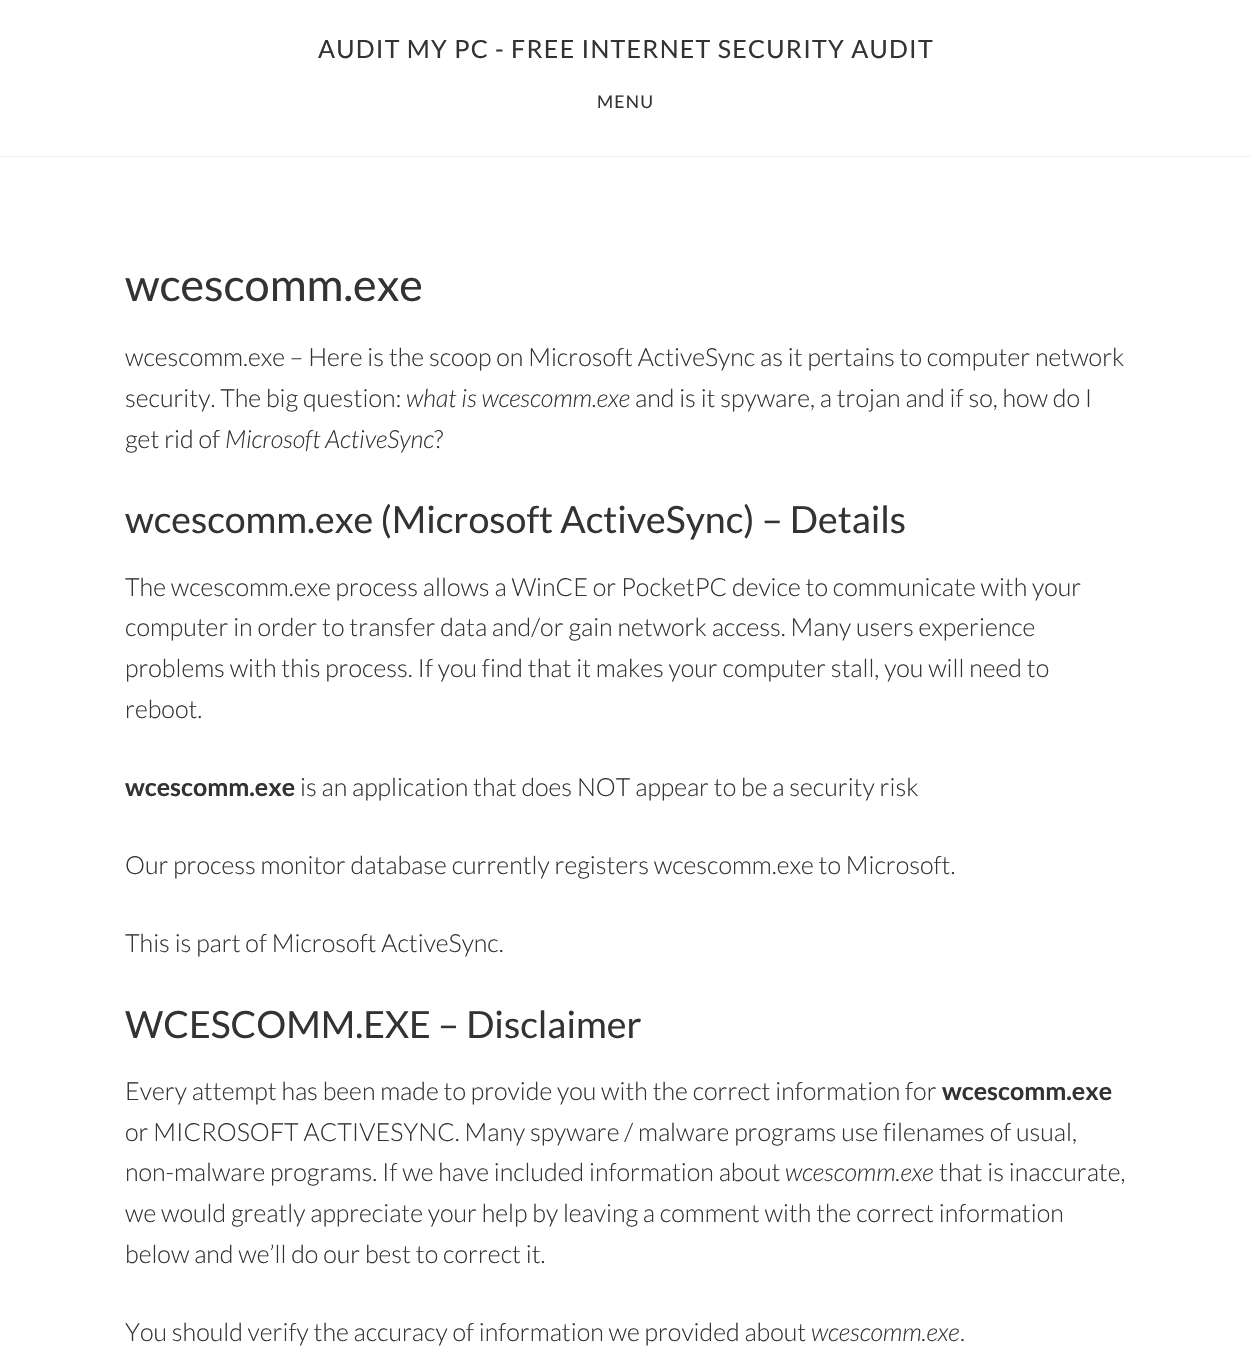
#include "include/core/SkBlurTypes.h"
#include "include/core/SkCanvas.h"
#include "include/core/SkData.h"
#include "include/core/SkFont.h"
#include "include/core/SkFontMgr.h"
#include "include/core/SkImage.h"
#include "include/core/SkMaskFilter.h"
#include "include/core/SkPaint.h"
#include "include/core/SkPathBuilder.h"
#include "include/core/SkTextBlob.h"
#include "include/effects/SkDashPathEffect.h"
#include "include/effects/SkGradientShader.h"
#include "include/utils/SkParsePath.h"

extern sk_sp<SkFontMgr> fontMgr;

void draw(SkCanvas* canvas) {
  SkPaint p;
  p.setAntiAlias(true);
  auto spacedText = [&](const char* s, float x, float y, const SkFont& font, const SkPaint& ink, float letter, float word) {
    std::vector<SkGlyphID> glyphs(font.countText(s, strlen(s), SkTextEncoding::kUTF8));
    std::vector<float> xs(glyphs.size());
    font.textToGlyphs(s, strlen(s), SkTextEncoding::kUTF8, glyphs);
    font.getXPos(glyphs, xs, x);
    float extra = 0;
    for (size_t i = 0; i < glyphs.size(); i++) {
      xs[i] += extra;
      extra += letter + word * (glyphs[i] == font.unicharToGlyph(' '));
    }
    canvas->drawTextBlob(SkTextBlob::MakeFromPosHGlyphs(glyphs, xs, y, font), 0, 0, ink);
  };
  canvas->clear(SK_ColorWHITE);
  p.setColor(SkColorSetRGB(238, 238, 238));
  canvas->drawRect(SkRect::MakeLTRB(0, 156, 1251, 157), p);
  SkFont font1(fontMgr->matchFamilyStyle("Lato", SkFontStyle::Normal()), 25);
  font1.setSubpixel(true);
  p.setColor(SkColorSetRGB(51, 51, 51));
  spacedText("AUDIT MY PC - FREE INTERNET SECURITY AUDIT", 318, 58, font1, p, 1.25f, 0);
  SkFont font2(fontMgr->matchFamilyStyle("Lato", SkFontStyle::Normal()), 17.5f);
  font2.setSubpixel(true);
  spacedText("MENU", 597, 108, font2, p, 1.25f, 0);
  SkFont font3(fontMgr->matchFamilyStyle("Lato", SkFontStyle::Normal()), 45);
  font3.setSubpixel(true);
  canvas->drawString("wcescomm.exe", 125, 301, font3, p);
  SkFont font4(fontMgr->matchFamilyStyle("Lato", SkFontStyle(300, SkFontStyle::kNormal_Width, SkFontStyle::kUpright_Slant)), 25);
  font4.setSubpixel(true);
  canvas->drawString("wcescomm.exe – Here is the scoop on Microsoft ActiveSync as it pertains to computer network", 125, 366, font4, p);
  canvas->drawString("security. The big question:", 125, 407, font4, p);
  SkFont font5(fontMgr->matchFamilyStyle("Lato", SkFontStyle(300, SkFontStyle::kNormal_Width, SkFontStyle::kItalic_Slant)), 25);
  font5.setSubpixel(true);
  canvas->drawString("what is wcescomm.exe", 406, 407, font5, p);
  canvas->drawString("and is it spyware, a trojan and if so, how do I", 635, 407, font4, p);
  canvas->drawString("get rid of", 125, 448, font4, p);
  canvas->drawString("Microsoft ActiveSync", 225, 448, font5, p);
  canvas->drawString("?", 434, 448, font4, p);
  SkFont font6(fontMgr->matchFamilyStyle("Lato", SkFontStyle::Normal()), 37.5f);
  font6.setSubpixel(true);
  canvas->drawString("wcescomm.exe (Microsoft ActiveSync) – Details", 125, 533, font6, p);
  canvas->drawString("The wcescomm.exe process allows a WinCE or PocketPC device to communicate with your", 125, 596, font4, p);
  canvas->drawString("computer in order to transfer data and/or gain network access. Many users experience", 125, 636, font4, p);
  canvas->drawString("problems with this process. If you find that it makes your computer stall, you will need to", 125, 677, font4, p);
  canvas->drawString("reboot.", 125, 718, font4, p);
  SkFont font7(fontMgr->matchFamilyStyle("Lato", SkFontStyle::Bold()), 25);
  font7.setSubpixel(true);
  canvas->drawString("wcescomm.exe", 125, 796, font7, p);
  canvas->drawString("is an application that does NOT appear to be a security risk", 300, 796, font4, p);
  canvas->drawString("Our process monitor database currently registers wcescomm.exe to Microsoft.", 125, 874, font4, p);
  canvas->drawString("This is part of Microsoft ActiveSync.", 125, 952, font4, p);
  canvas->drawString("WCESCOMM.EXE – Disclaimer", 125, 1038, font6, p);
  canvas->drawString("Every attempt has been made to provide you with the correct information for", 125, 1100, font4, p);
  canvas->drawString("wcescomm.exe", 942, 1100, font7, p);
  canvas->drawString("or MICROSOFT ACTIVESYNC. Many spyware / malware programs use filenames of usual,", 125, 1141, font4, p);
  canvas->drawString("non-malware programs. If we have included information about", 125, 1181, font4, p);
  canvas->drawString("wcescomm.exe", 785, 1181, font5, p);
  canvas->drawString("that is inaccurate,", 939, 1181, font4, p);
  canvas->drawString("we would greatly appreciate your help by leaving a comment with the correct information", 125, 1222, font4, p);
  canvas->drawString("below and we’ll do our best to correct it.", 125, 1263, font4, p);
  canvas->drawString("You should verify the accuracy of information we provided about", 125, 1341, font4, p);
  canvas->drawString("wcescomm.exe", 811, 1341, font5, p);
  canvas->drawString(".", 960, 1341, font4, p);
}
